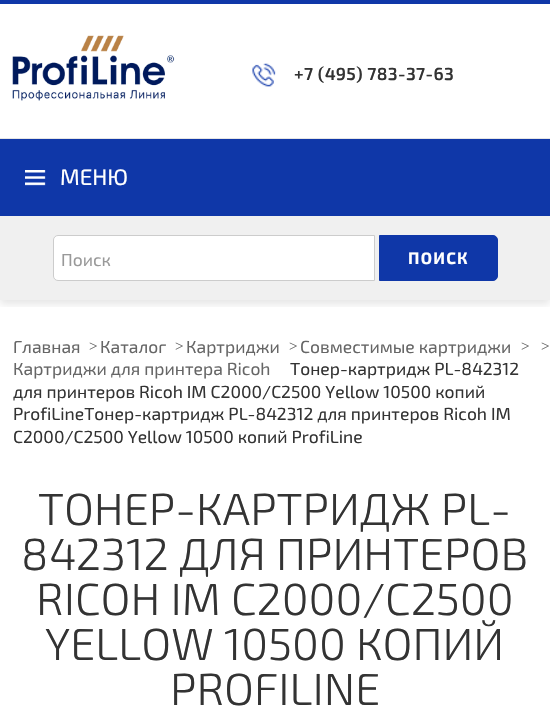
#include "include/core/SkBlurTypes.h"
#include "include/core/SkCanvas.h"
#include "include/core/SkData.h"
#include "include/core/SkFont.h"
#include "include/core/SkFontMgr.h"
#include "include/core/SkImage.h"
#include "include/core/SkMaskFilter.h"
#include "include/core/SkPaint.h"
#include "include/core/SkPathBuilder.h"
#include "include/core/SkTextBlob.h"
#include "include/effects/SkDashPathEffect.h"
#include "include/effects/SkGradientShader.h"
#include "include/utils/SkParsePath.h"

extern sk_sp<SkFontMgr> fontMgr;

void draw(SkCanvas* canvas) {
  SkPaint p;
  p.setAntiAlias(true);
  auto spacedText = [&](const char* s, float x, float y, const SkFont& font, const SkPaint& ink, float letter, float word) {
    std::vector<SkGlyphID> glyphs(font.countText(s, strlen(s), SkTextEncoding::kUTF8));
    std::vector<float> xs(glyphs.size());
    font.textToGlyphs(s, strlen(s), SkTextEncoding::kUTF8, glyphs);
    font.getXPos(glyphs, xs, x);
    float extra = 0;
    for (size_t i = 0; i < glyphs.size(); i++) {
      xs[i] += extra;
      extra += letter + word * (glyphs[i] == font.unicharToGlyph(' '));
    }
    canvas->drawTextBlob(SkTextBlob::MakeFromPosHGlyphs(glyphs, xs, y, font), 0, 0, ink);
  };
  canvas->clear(SK_ColorWHITE);
  canvas->save();
  canvas->clipRect(SkRect::MakeLTRB(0, 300, 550, 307));
  p.setColor(SkColorSetARGB(26, 0, 0, 0));
  p.setMaskFilter(SkMaskFilter::MakeBlur(kNormal_SkBlurStyle, 4));
  canvas->drawRect(SkRect::MakeLTRB(0, 4, 550, 304), p);
  p.setMaskFilter(nullptr);
  canvas->restore();
  p.setColor(SkColorSetRGB(15, 55, 168));
  canvas->drawRect(SkRect::MakeLTRB(0, 0, 550, 4), p);
  canvas->drawImageRect(SkImages::DeferredFromEncodedData(SkData::MakeFromFileName("images/1.png")), SkRect::MakeLTRB(12, 35, 175, 101), SkSamplingOptions());
  canvas->drawImageRect(SkImages::DeferredFromEncodedData(SkData::MakeFromFileName("images/2.png")), SkRect::MakeLTRB(252, 63, 276, 87), SkSamplingOptions());
  p.setColor(SkColorSetRGB(229, 229, 229));
  canvas->drawRect(SkRect::MakeLTRB(0, 138, 550, 139), p);
  p.setColor(SkColorSetRGB(15, 55, 168));
  canvas->drawRect(SkRect::MakeLTRB(0, 139, 550, 216), p);
  canvas->drawImageRect(SkImages::DeferredFromEncodedData(SkData::MakeFromFileName("images/3.png")), SkRect::MakeLTRB(25, 170, 46, 186), SkSamplingOptions());
  p.setColor(SkColorSetRGB(240, 240, 240));
  canvas->drawRect(SkRect::MakeLTRB(0, 216, 550, 300), p);
  p.setColor(SK_ColorWHITE);
  canvas->drawPath(SkPathBuilder().moveTo(58, 235.5f).lineTo(374.5f, 235.5f).lineTo(374.5f, 280.5f).lineTo(58, 280.5f).cubicTo(55.5f, 280.5f, 53.5f, 278.5f, 53.5f, 276).lineTo(53.5f, 240).cubicTo(53.5f, 237.5f, 55.5f, 235.5f, 58, 235.5f).close().detach(), p);
  p.setStyle(SkPaint::kStroke_Style);
  p.setStrokeWidth(1);
  p.setColor(SkColorSetRGB(204, 204, 204));
  canvas->drawPath(SkPathBuilder().moveTo(58, 235.5f).lineTo(374.5f, 235.5f).lineTo(374.5f, 280.5f).lineTo(58, 280.5f).cubicTo(55.5f, 280.5f, 53.5f, 278.5f, 53.5f, 276).lineTo(53.5f, 240).cubicTo(53.5f, 237.5f, 55.5f, 235.5f, 58, 235.5f).close().detach(), p);
  p.setStyle(SkPaint::kFill_Style);
  p.setColor(SkColorSetRGB(15, 55, 168));
  canvas->drawPath(SkPathBuilder().moveTo(379.5f, 235.5f).lineTo(493, 235.5f).cubicTo(495.5f, 235.5f, 497.5f, 237.5f, 497.5f, 240).lineTo(497.5f, 276).cubicTo(497.5f, 278.5f, 495.5f, 280.5f, 493, 280.5f).lineTo(379.5f, 280.5f).close().detach(), p);
  p.setStyle(SkPaint::kStroke_Style);
  canvas->drawPath(SkPathBuilder().moveTo(379.5f, 235.5f).lineTo(493, 235.5f).cubicTo(495.5f, 235.5f, 497.5f, 237.5f, 497.5f, 240).lineTo(497.5f, 276).cubicTo(497.5f, 278.5f, 495.5f, 280.5f, 493, 280.5f).lineTo(379.5f, 280.5f).close().detach(), p);
  SkFont font1(fontMgr->matchFamilyStyle("Exo 2", SkFontStyle(600, SkFontStyle::kNormal_Width, SkFontStyle::kUpright_Slant)), 17.5f);
  font1.setSubpixel(true);
  p.setStyle(SkPaint::kFill_Style);
  p.setColor(SkColorSetRGB(51, 51, 51));
  spacedText("+7 (495) 783-37-63", 294, 80, font1, p, 0.4f, 0);
  SkFont font2(fontMgr->matchFamilyStyle("Exo 2", SkFontStyle::Normal()), 22.5f);
  font2.setSubpixel(true);
  p.setColor(SK_ColorWHITE);
  canvas->drawString("МЕНЮ", 60, 185, font2, p);
  SkFont font3(fontMgr->matchFamilyStyle("Exo 2", SkFontStyle::Normal()), 17.5f);
  font3.setSubpixel(true);
  p.setColor(SkColorSetRGB(153, 153, 153));
  canvas->drawString("Поиск", 61, 266, font3, p);
  SkFont font4(fontMgr->matchFamilyStyle("Exo 2", SkFontStyle::Bold()), 16.5f);
  font4.setSubpixel(true);
  p.setColor(SK_ColorWHITE);
  spacedText("ПОИСК", 408, 264, font4, p, 1.25f, 0);
  p.setColor(SkColorSetRGB(102, 102, 102));
  canvas->drawString("Главная", 13, 353, font3, p);
  SkFont font5(fontMgr->matchFamilyStyle("Liberation Serif", SkFontStyle::Normal()), 15);
  font5.setSubpixel(true);
  canvas->drawString(">", 89, 351, font5, p);
  canvas->drawString("Каталог", 100, 353, font3, p);
  canvas->drawString(">", 175, 351, font5, p);
  canvas->drawString("Картриджи", 186, 353, font3, p);
  canvas->drawString(">", 289, 351, font5, p);
  canvas->drawString("Совместимые картриджи", 300, 353, font3, p);
  canvas->drawString(">", 521, 351, font5, p);
  canvas->drawString(">", 541, 351, font5, p);
  canvas->drawString("Картриджи для принтера Ricoh", 13, 375, font3, p);
  p.setColor(SkColorSetRGB(51, 51, 51));
  canvas->drawString("Тонер-картридж PL-842312", 290, 375, font3, p);
  canvas->drawString("для принтеров Ricoh IM C2000/C2500 Yellow 10500 копий", 13, 398, font3, p);
  canvas->drawString("ProfiLineТонер-картридж PL-842312 для принтеров Ricoh IM", 13, 420, font3, p);
  canvas->drawString("C2000/C2500 Yellow 10500 копий ProfiLine", 13, 443, font3, p);
  SkFont font6(fontMgr->matchFamilyStyle("Exo 2", SkFontStyle(300, SkFontStyle::kNormal_Width, SkFontStyle::kUpright_Slant)), 45);
  font6.setSubpixel(true);
  canvas->drawString("ТОНЕР-КАРТРИДЖ PL-", 38, 525, font6, p);
  canvas->drawString("842312 ДЛЯ ПРИНТЕРОВ", 21, 570, font6, p);
  canvas->drawString("RICOH IM C2000/C2500", 36, 615, font6, p);
  canvas->drawString("YELLOW 10500 КОПИЙ", 45, 660, font6, p);
  canvas->drawString("PROFILINE", 170, 705, font6, p);
}
